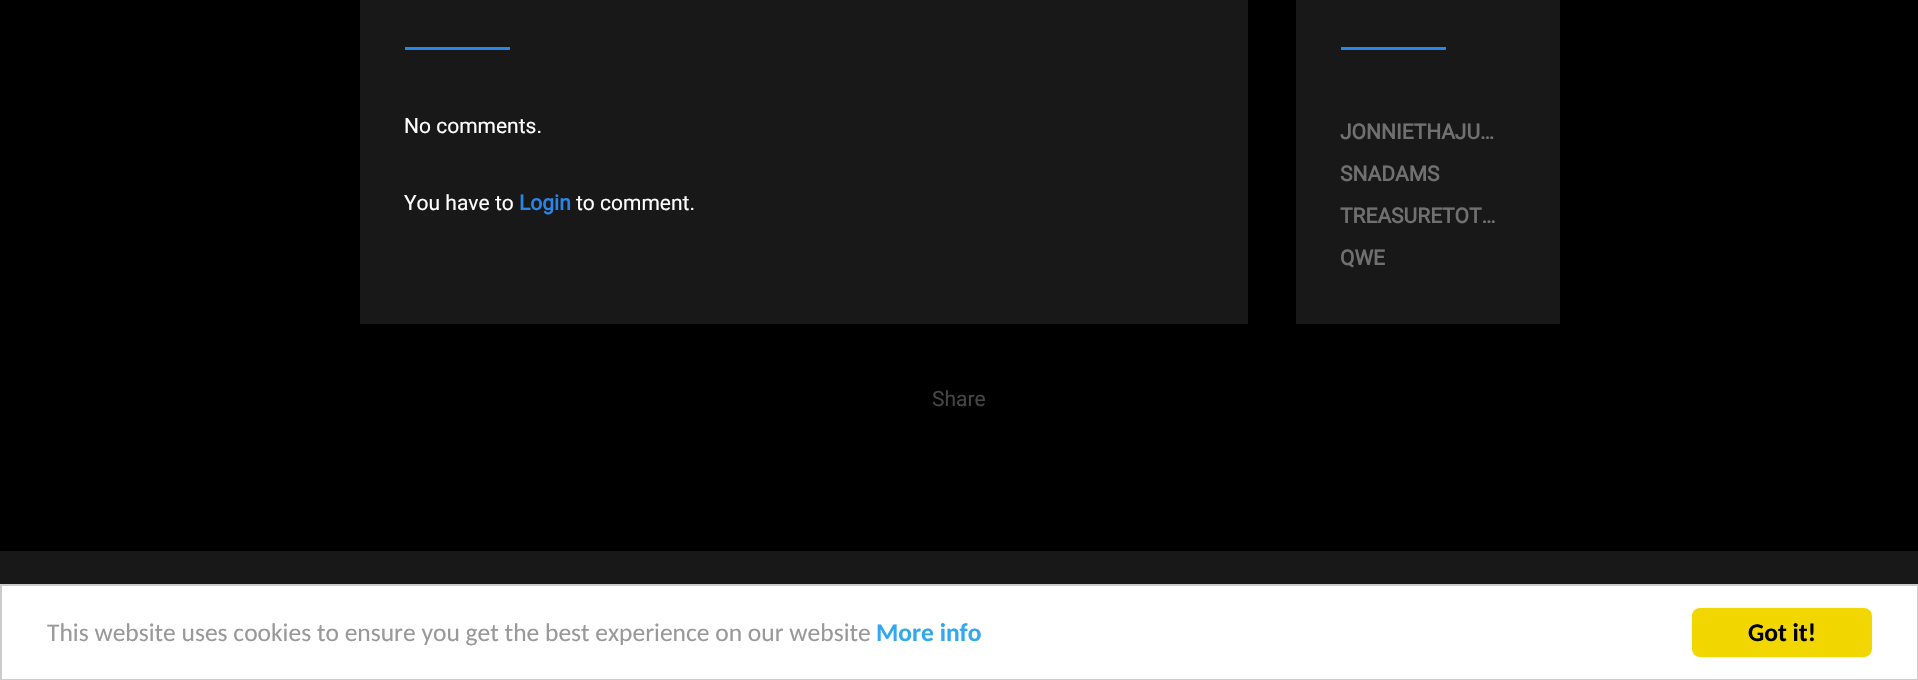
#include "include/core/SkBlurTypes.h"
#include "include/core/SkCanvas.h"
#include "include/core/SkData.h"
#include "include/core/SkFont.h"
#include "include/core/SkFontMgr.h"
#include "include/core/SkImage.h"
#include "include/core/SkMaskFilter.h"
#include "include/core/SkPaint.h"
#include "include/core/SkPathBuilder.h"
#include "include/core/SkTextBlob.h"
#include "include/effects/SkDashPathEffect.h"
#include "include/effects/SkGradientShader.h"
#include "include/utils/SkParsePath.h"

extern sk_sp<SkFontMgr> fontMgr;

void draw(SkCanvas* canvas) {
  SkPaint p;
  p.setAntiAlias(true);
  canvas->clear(SK_ColorBLACK);
  p.setColor(SkColorSetRGB(24, 24, 24));
  canvas->drawRect(SkRect::MakeLTRB(360, 0, 1248, 324), p);
  p.setColor(SkColorSetRGB(42, 133, 232));
  canvas->drawRect(SkRect::MakeLTRB(405, 47, 510, 50), p);
  p.setColor(SkColorSetRGB(24, 24, 24));
  canvas->drawRect(SkRect::MakeLTRB(1296, 0, 1560, 324), p);
  p.setColor(SkColorSetRGB(42, 133, 232));
  canvas->drawRect(SkRect::MakeLTRB(1341, 47, 1446, 50), p);
  p.setColor(SkColorSetRGB(24, 24, 24));
  canvas->drawRect(SkRect::MakeLTRB(0, 551, 1918, 584), p);
  p.setColor(SK_ColorWHITE);
  canvas->drawRect(SkRect::MakeLTRB(1, 585, 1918, 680), p);
  p.setStyle(SkPaint::kStroke_Style);
  p.setStrokeWidth(2);
  p.setColor(SkColorSetRGB(204, 204, 204));
  canvas->drawRect(SkRect::MakeLTRB(1, 585, 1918, 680), p);
  p.setStyle(SkPaint::kFill_Style);
  p.setColor(SkColorSetRGB(241, 214, 0));
  canvas->drawRoundRect(SkRect::MakeLTRB(1692, 608, 1872, 657), 8, 8, p);
  SkFont font1(fontMgr->matchFamilyStyle("Roboto", SkFontStyle::Normal()), 21);
  font1.setSubpixel(true);
  p.setColor(SK_ColorWHITE);
  canvas->drawString("No comments.", 404, 133, font1, p);
  canvas->drawString("You have to", 404, 210, font1, p);
  SkFont font2(fontMgr->matchFamilyStyle("Roboto", SkFontStyle::Bold()), 21);
  font2.setSubpixel(true);
  p.setColor(SkColorSetRGB(42, 133, 232));
  canvas->drawString("Login", 519, 210, font2, p);
  p.setColor(SK_ColorWHITE);
  canvas->drawString("to comment.", 576, 210, font1, p);
  p.setColor(SkColorSetRGB(112, 112, 112));
  canvas->drawString("JONNIETHAJU…", 1340, 139, font2, p);
  canvas->drawString("SNADAMS", 1340, 181, font2, p);
  canvas->drawString("TREASURETOT…", 1340, 223, font2, p);
  canvas->drawString("QWE", 1340, 265, font2, p);
  p.setColor(SkColorSetRGB(70, 70, 70));
  canvas->drawString("Share", 932, 406, font1, p);
  SkFont font3(fontMgr->matchFamilyStyle("Carlito", SkFontStyle::Normal()), 25.5f);
  font3.setSubpixel(true);
  p.setColor(SkColorSetRGB(153, 153, 153));
  canvas->drawString("This website uses cookies to ensure you get the best experience on our website", 47, 641, font3, p);
  SkFont font4(fontMgr->matchFamilyStyle("Carlito", SkFontStyle::Bold()), 25.5f);
  font4.setSubpixel(true);
  p.setColor(SkColorSetRGB(49, 168, 240));
  canvas->drawString("More info", 876, 641, font4, p);
  p.setColor(SK_ColorBLACK);
  canvas->drawString("Got it!", 1748, 641, font4, p);
}
